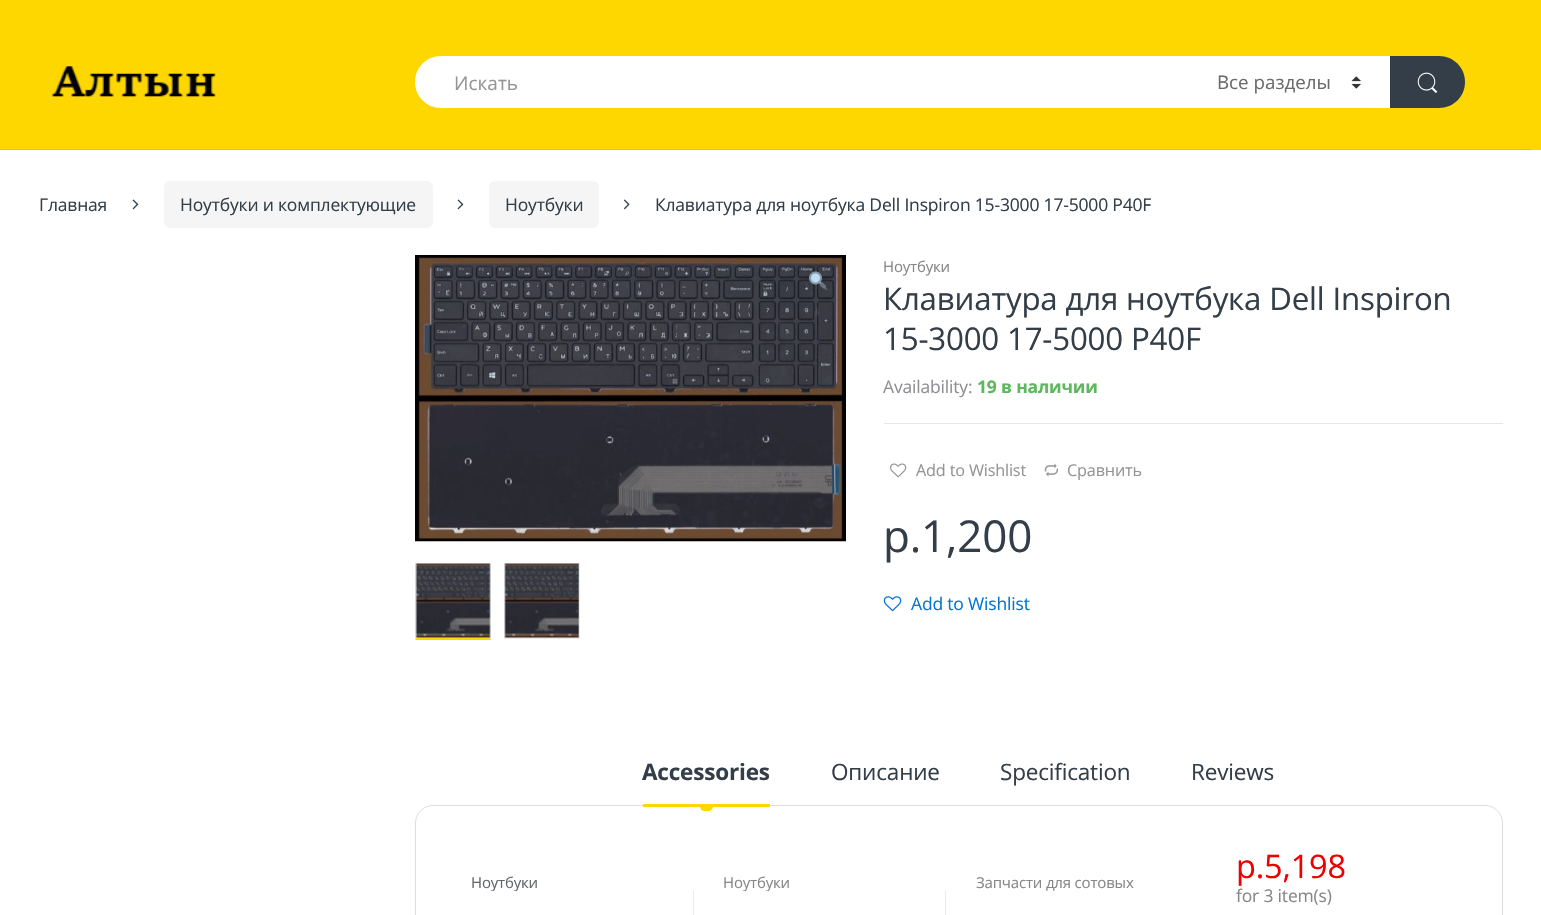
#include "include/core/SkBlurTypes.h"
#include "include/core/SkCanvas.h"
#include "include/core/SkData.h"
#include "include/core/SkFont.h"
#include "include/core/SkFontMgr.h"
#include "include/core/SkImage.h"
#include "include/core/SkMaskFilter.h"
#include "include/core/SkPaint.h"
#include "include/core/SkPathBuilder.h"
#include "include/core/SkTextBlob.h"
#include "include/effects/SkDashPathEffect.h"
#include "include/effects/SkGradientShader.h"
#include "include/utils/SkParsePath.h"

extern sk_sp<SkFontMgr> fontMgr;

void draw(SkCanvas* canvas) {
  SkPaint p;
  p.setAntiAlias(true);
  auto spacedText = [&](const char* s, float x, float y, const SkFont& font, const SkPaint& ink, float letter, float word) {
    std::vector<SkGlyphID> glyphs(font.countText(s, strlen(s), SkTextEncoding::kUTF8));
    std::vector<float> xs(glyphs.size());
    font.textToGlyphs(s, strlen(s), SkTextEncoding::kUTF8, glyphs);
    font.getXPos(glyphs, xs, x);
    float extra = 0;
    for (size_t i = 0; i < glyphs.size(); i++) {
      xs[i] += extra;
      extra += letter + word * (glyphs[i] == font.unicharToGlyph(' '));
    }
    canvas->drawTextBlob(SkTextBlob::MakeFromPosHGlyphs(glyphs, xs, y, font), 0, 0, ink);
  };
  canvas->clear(SK_ColorWHITE);
  p.setColor(SkColorSetRGB(254, 215, 0));
  canvas->drawRect(SkRect::MakeLTRB(0, 0, 1541, 150), p);
  canvas->drawImageRect(SkImages::DeferredFromEncodedData(SkData::MakeFromFileName("images/1.png")), SkRect::MakeLTRB(52, 66, 216, 97), SkSamplingOptions());
  p.setColor(SK_ColorWHITE);
  canvas->drawPath(SkPathBuilder().moveTo(441, 56).lineTo(1188, 56).lineTo(1188, 108).lineTo(441, 108).cubicTo(426.5f, 108, 415, 96.5f, 415, 82).cubicTo(415, 67.5f, 426.5f, 56, 441, 56).close().detach(), p);
  canvas->drawRect(SkRect::MakeLTRB(1188, 56, 1390, 108), p);
  canvas->drawImageRect(SkImages::DeferredFromEncodedData(SkData::MakeFromFileName("images/2.png")), SkRect::MakeLTRB(1351, 76, 1362, 89), SkSamplingOptions());
  p.setColor(SkColorSetRGB(51, 62, 72));
  canvas->drawPath(SkPathBuilder().moveTo(1390, 56).lineTo(1439, 56).cubicTo(1453.5f, 56, 1465, 67.5f, 1465, 82).cubicTo(1465, 96.5f, 1453.5f, 108, 1439, 108).lineTo(1390, 108).close().detach(), p);
  canvas->drawImageRect(SkImages::DeferredFromEncodedData(SkData::MakeFromFileName("images/3.png")), SkRect::MakeLTRB(1417, 72, 1438, 93), SkSamplingOptions());
  p.setColor(SkColorSetRGB(231, 196, 0));
  canvas->drawRect(SkRect::MakeLTRB(0, 149, 1531, 150), p);
  canvas->drawImageRect(SkImages::DeferredFromEncodedData(SkData::MakeFromFileName("images/4.png")), SkRect::MakeLTRB(132, 199, 139, 210), SkSamplingOptions());
  p.setColor(SkColorSetRGB(245, 245, 245));
  canvas->drawRoundRect(SkRect::MakeLTRB(164, 181, 433, 228), 6, 6, p);
  canvas->drawImageRect(SkImages::DeferredFromEncodedData(SkData::MakeFromFileName("images/4.png")), SkRect::MakeLTRB(457, 199, 464, 210), SkSamplingOptions());
  canvas->drawRoundRect(SkRect::MakeLTRB(489, 181, 599, 228), 6, 6, p);
  canvas->drawImageRect(SkImages::DeferredFromEncodedData(SkData::MakeFromFileName("images/5.png")), SkRect::MakeLTRB(623, 199, 630, 210), SkSamplingOptions());
  canvas->drawImageRect(SkImages::DeferredFromEncodedData(SkData::MakeFromFileName("images/6.png")), SkRect::MakeLTRB(415, 255, 846, 542), SkSamplingOptions());
  canvas->drawImageRect(SkImages::DeferredFromEncodedData(SkData::MakeFromFileName("images/7.png")), SkRect::MakeLTRB(809, 271, 826, 289), SkSamplingOptions());
  p.setColor(SkColorSetRGB(234, 234, 234));
  canvas->drawRect(SkRect::MakeLTRB(415, 563, 491, 564), p);
  canvas->drawPath(SkPathBuilder().moveTo(491, 562).lineTo(491, 640).lineTo(490, 638).lineTo(490, 564).close().detach(), p);
  p.setColor(SkColorSetRGB(254, 215, 0));
  canvas->drawPath(SkPathBuilder().moveTo(491, 640).lineTo(415, 640).lineTo(416, 638).lineTo(490, 638).close().detach(), p);
  p.setColor(SkColorSetRGB(234, 234, 234));
  canvas->drawPath(SkPathBuilder().moveTo(415, 640).lineTo(415, 562).lineTo(416, 564).lineTo(416, 638).close().detach(), p);
  canvas->drawImageRect(SkImages::DeferredFromEncodedData(SkData::MakeFromFileName("images/8.png")), SkRect::MakeLTRB(415, 563, 491, 638), SkSamplingOptions());
  p.setStyle(SkPaint::kStroke_Style);
  p.setStrokeWidth(1);
  canvas->drawRect(SkRect::MakeLTRB(504.5f, 563.5f, 579.5f, 638.5f), p);
  canvas->drawImageRect(SkImages::DeferredFromEncodedData(SkData::MakeFromFileName("images/9.png")), SkRect::MakeLTRB(504, 563, 579, 638), SkSamplingOptions());
  p.setStyle(SkPaint::kFill_Style);
  p.setColor(SkColorSetRGB(230, 230, 230));
  canvas->drawRect(SkRect::MakeLTRB(884, 423, 1503, 424), p);
  canvas->drawImageRect(SkImages::DeferredFromEncodedData(SkData::MakeFromFileName("images/10.png")), SkRect::MakeLTRB(890, 463, 907, 478), SkSamplingOptions());
  canvas->drawImageRect(SkImages::DeferredFromEncodedData(SkData::MakeFromFileName("images/11.png")), SkRect::MakeLTRB(1044, 463, 1058, 477), SkSamplingOptions());
  canvas->drawImageRect(SkImages::DeferredFromEncodedData(SkData::MakeFromFileName("images/12.png")), SkRect::MakeLTRB(883, 596, 902, 612), SkSamplingOptions());
  p.setStyle(SkPaint::kStroke_Style);
  p.setColor(SkColorSetRGB(221, 221, 221));
  canvas->drawRoundRect(SkRect::MakeLTRB(415.5f, 805.5f, 1502.5f, 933.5f), 17.5f, 17.5f, p);
  p.setStyle(SkPaint::kFill_Style);
  p.setColor(SkColorSetRGB(254, 215, 0));
  canvas->drawPath(SkPathBuilder().moveTo(700, 806).lineTo(713, 806).cubicTo(713, 809, 711, 811, 708, 811).lineTo(705, 811).cubicTo(702, 811, 700, 809, 700, 806).close().detach(), p);
  canvas->drawRect(SkRect::MakeLTRB(643, 804, 770, 807), p);
  p.setColor(SkColorSetRGB(234, 234, 234));
  canvas->drawRect(SkRect::MakeLTRB(693, 890, 694, 915), p);
  canvas->drawRect(SkRect::MakeLTRB(945, 890, 946, 915), p);
  SkFont font1(fontMgr->matchFamilyStyle("Open Sans", SkFontStyle::Normal()), 19);
  font1.setSubpixel(true);
  p.setColor(SkColorSetRGB(148, 148, 148));
  canvas->drawString("Искать", 454, 90, font1, p);
  SkFont font2(fontMgr->matchFamilyStyle("Open Sans", SkFontStyle::Normal()), 18.75f);
  font2.setSubpixel(true);
  p.setColor(SkColorSetRGB(107, 107, 107));
  canvas->drawString("Все разделы", 1217, 89, font2, p);
  SkFont font3(fontMgr->matchFamilyStyle("Open Sans", SkFontStyle::Normal()), 17.5f);
  font3.setSubpixel(true);
  p.setColor(SkColorSetRGB(51, 62, 72));
  spacedText("Главная", 39, 211, font3, p, -0.18f, 0);
  spacedText("Ноутбуки и комплектующие", 180, 211, font3, p, -0.18f, 0);
  spacedText("Ноутбуки", 505, 211, font3, p, -0.18f, 0);
  spacedText("Клавиатура для ноутбука Dell Inspiron 15-3000 17-5000 P40F", 655, 211, font3, p, -0.18f, 0);
  SkFont font4(fontMgr->matchFamilyStyle("Open Sans", SkFontStyle::Normal()), 15);
  font4.setSubpixel(true);
  p.setColor(SkColorSetRGB(135, 135, 135));
  spacedText("Ноутбуки", 883, 272, font4, p, -0.18f, 0);
  SkFont font5(fontMgr->matchFamilyStyle("Open Sans", SkFontStyle::Normal()), 31.25f);
  font5.setSubpixel(true);
  p.setColor(SkColorSetRGB(51, 62, 72));
  spacedText("Клавиатура для ноутбука Dell Inspiron", 883, 310, font5, p, -0.18f, 0);
  spacedText("15-3000 17-5000 P40F", 883, 350, font5, p, -0.18f, 0);
  p.setColor(SkColorSetRGB(143, 142, 148));
  spacedText("Availability:", 883, 393, font3, p, -0.18f, 0);
  SkFont font6(fontMgr->matchFamilyStyle("Open Sans", SkFontStyle::Bold()), 17.5f);
  font6.setSubpixel(true);
  p.setColor(SkColorSetRGB(92, 184, 92));
  spacedText("19 в наличии", 977, 393, font6, p, -0.18f, 0);
  SkFont font7(fontMgr->matchFamilyStyle("Open Sans", SkFontStyle::Normal()), 16.25f);
  font7.setSubpixel(true);
  p.setColor(SkColorSetRGB(148, 148, 148));
  spacedText("Add to Wishlist", 916, 476, font7, p, -0.18f, 0);
  spacedText("Сравнить", 1067, 476, font7, p, -0.18f, 0);
  SkFont font8(fontMgr->matchFamilyStyle("Open Sans", SkFontStyle::Normal()), 44);
  font8.setSubpixel(true);
  p.setColor(SkColorSetRGB(51, 62, 72));
  spacedText("р.1,200", 883, 552, font8, p, -0.18f, 0);
  p.setColor(SkColorSetRGB(2, 117, 216));
  spacedText("Add to Wishlist", 911, 610, font3, p, -0.18f, 0);
  SkFont font9(fontMgr->matchFamilyStyle("Open Sans", SkFontStyle::Bold()), 22.5f);
  font9.setSubpixel(true);
  p.setColor(SkColorSetRGB(51, 62, 72));
  spacedText("Accessories", 642, 780, font9, p, -0.18f, 0);
  SkFont font10(fontMgr->matchFamilyStyle("Open Sans", SkFontStyle::Normal()), 22.5f);
  font10.setSubpixel(true);
  spacedText("Описание", 831, 780, font10, p, -0.18f, 0);
  spacedText("Specification", 1000, 780, font10, p, -0.18f, 0);
  spacedText("Reviews", 1191, 780, font10, p, -0.18f, 0);
  canvas->save();
  canvas->clipRect(SkRect::MakeLTRB(470, 875, 664, 891));
  p.setColor(SkColorSetRGB(100, 104, 108));
  spacedText("Ноутбуки", 471, 888, font4, p, -0.18f, 0);
  canvas->restore();
  canvas->save();
  canvas->clipRect(SkRect::MakeLTRB(723, 875, 916, 891));
  p.setColor(SkColorSetRGB(135, 135, 135));
  spacedText("Ноутбуки", 723, 888, font4, p, -0.18f, 0);
  canvas->restore();
  spacedText("Запчасти для сотовых", 976, 888, font4, p, -0.18f, 0);
  SkFont font11(fontMgr->matchFamilyStyle("Open Sans", SkFontStyle::Normal()), 32.5f);
  font11.setSubpixel(true);
  p.setColor(SkColorSetRGB(238, 0, 0));
  spacedText("р.5,198", 1236, 878, font11, p, -0.18f, 0);
  p.setColor(SkColorSetRGB(135, 135, 135));
  spacedText("for 3 item(s)", 1236, 902, font3, p, -0.18f, 0);
}
